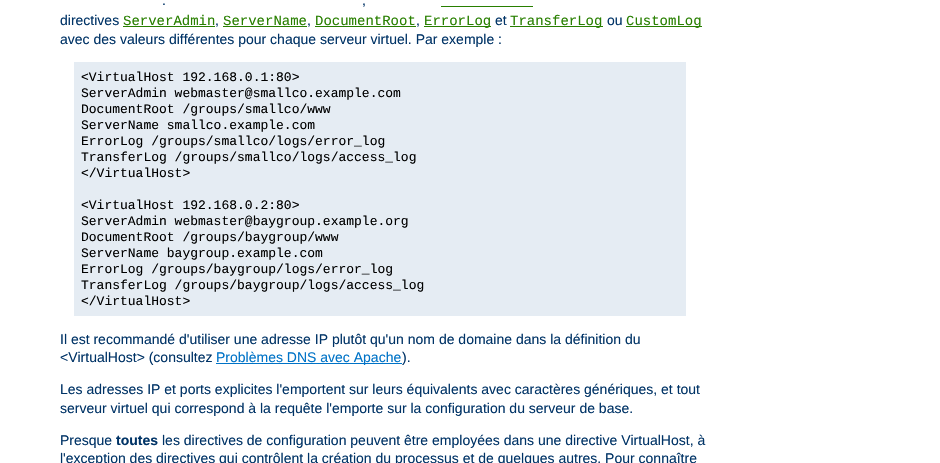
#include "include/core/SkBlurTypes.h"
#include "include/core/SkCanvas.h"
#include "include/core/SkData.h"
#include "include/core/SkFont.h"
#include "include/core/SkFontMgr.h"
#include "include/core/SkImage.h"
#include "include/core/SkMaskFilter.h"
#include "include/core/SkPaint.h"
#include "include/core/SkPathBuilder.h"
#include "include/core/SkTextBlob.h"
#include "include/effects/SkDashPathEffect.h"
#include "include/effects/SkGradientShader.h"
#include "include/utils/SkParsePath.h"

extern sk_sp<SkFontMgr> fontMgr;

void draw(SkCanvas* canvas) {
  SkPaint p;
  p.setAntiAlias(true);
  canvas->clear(SK_ColorWHITE);
  p.setColor(SkColorSetRGB(40, 127, 0));
  canvas->drawRect(SkRect::MakeLTRB(441, 6, 533, 7), p);
  canvas->drawRect(SkRect::MakeLTRB(123, 26, 215, 27), p);
  canvas->drawRect(SkRect::MakeLTRB(223, 26, 307, 27), p);
  canvas->drawRect(SkRect::MakeLTRB(315, 26, 416, 27), p);
  canvas->drawRect(SkRect::MakeLTRB(424, 26, 491, 27), p);
  canvas->drawRect(SkRect::MakeLTRB(510, 26, 603, 27), p);
  canvas->drawRect(SkRect::MakeLTRB(626, 26, 702, 27), p);
  p.setColor(SkColorSetRGB(229, 236, 243));
  canvas->drawRect(SkRect::MakeLTRB(74, 62, 686, 316), p);
  p.setColor(SkColorSetRGB(0, 115, 199));
  canvas->drawRect(SkRect::MakeLTRB(216, 363, 402, 364), p);
  SkFont font1(fontMgr->matchFamilyStyle("Liberation Sans", SkFontStyle::Normal()), 14);
  font1.setSubpixel(true);
  p.setColor(SkColorSetRGB(0, 51, 102));
  canvas->drawString(".", 162, 5, font1, p);
  canvas->drawString(",", 362, 5, font1, p);
  canvas->drawString("directives", 60, 25, font1, p);
  SkFont font2(fontMgr->matchFamilyStyle("Liberation Mono", SkFontStyle::Normal()), 14);
  font2.setSubpixel(true);
  p.setColor(SkColorSetRGB(40, 127, 0));
  canvas->drawString("ServerAdmin", 123, 25, font2, p);
  p.setColor(SkColorSetRGB(0, 51, 102));
  canvas->drawString(",", 215, 25, font1, p);
  p.setColor(SkColorSetRGB(40, 127, 0));
  canvas->drawString("ServerName", 223, 25, font2, p);
  p.setColor(SkColorSetRGB(0, 51, 102));
  canvas->drawString(",", 307, 25, font1, p);
  p.setColor(SkColorSetRGB(40, 127, 0));
  canvas->drawString("DocumentRoot", 315, 25, font2, p);
  p.setColor(SkColorSetRGB(0, 51, 102));
  canvas->drawString(",", 416, 25, font1, p);
  p.setColor(SkColorSetRGB(40, 127, 0));
  canvas->drawString("ErrorLog", 424, 25, font2, p);
  p.setColor(SkColorSetRGB(0, 51, 102));
  canvas->drawString("et", 495, 25, font1, p);
  p.setColor(SkColorSetRGB(40, 127, 0));
  canvas->drawString("TransferLog", 510, 25, font2, p);
  p.setColor(SkColorSetRGB(0, 51, 102));
  canvas->drawString("ou", 607, 25, font1, p);
  p.setColor(SkColorSetRGB(40, 127, 0));
  canvas->drawString("CustomLog", 626, 25, font2, p);
  p.setColor(SkColorSetRGB(0, 51, 102));
  canvas->drawString("avec des valeurs différentes pour chaque serveur virtuel. Par exemple :", 60, 44, font1, p);
  SkFont font3(fontMgr->matchFamilyStyle("Liberation Mono", SkFontStyle::Normal()), 13);
  font3.setSubpixel(true);
  p.setColor(SK_ColorBLACK);
  canvas->drawString("<VirtualHost 192.168.0.1:80>", 81, 81, font3, p);
  canvas->drawString("ServerAdmin webmaster@smallco.example.com", 81, 97, font3, p);
  canvas->drawString("DocumentRoot /groups/smallco/www", 81, 113, font3, p);
  canvas->drawString("ServerName smallco.example.com", 81, 129, font3, p);
  canvas->drawString("ErrorLog /groups/smallco/logs/error_log", 81, 145, font3, p);
  canvas->drawString("TransferLog /groups/smallco/logs/access_log", 81, 161, font3, p);
  canvas->drawString("</VirtualHost>", 81, 177, font3, p);
  canvas->drawString("<VirtualHost 192.168.0.2:80>", 81, 209, font3, p);
  canvas->drawString("ServerAdmin webmaster@baygroup.example.org", 81, 225, font3, p);
  canvas->drawString("DocumentRoot /groups/baygroup/www", 81, 241, font3, p);
  canvas->drawString("ServerName baygroup.example.com", 81, 257, font3, p);
  canvas->drawString("ErrorLog /groups/baygroup/logs/error_log", 81, 273, font3, p);
  canvas->drawString("TransferLog /groups/baygroup/logs/access_log", 81, 289, font3, p);
  canvas->drawString("</VirtualHost>", 81, 305, font3, p);
  p.setColor(SkColorSetRGB(0, 51, 102));
  canvas->drawString("Il est recommandé d'utiliser une adresse IP plutôt qu'un nom de domaine dans la définition du", 60, 344, font1, p);
  canvas->drawString("<VirtualHost> (consultez", 60, 362, font1, p);
  p.setColor(SkColorSetRGB(0, 115, 199));
  canvas->drawString("Problèmes DNS avec Apache", 216, 362, font1, p);
  p.setColor(SkColorSetRGB(0, 51, 102));
  canvas->drawString(").", 402, 362, font1, p);
  canvas->drawString("Les adresses IP et ports explicites l'emportent sur leurs équivalents avec caractères génériques, et tout", 60, 394, font1, p);
  canvas->drawString("serveur virtuel qui correspond à la requête l'emporte sur la configuration du serveur de base.", 60, 413, font1, p);
  canvas->drawString("Presque", 60, 445, font1, p);
  SkFont font4(fontMgr->matchFamilyStyle("Liberation Sans", SkFontStyle::Bold()), 14);
  font4.setSubpixel(true);
  canvas->drawString("toutes", 116, 445, font4, p);
  canvas->drawString("les directives de configuration peuvent être employées dans une directive VirtualHost, à", 162, 445, font1, p);
  canvas->drawString("l'exception des directives qui contrôlent la création du processus et de quelques autres. Pour connaître", 60, 463, font1, p);
}
